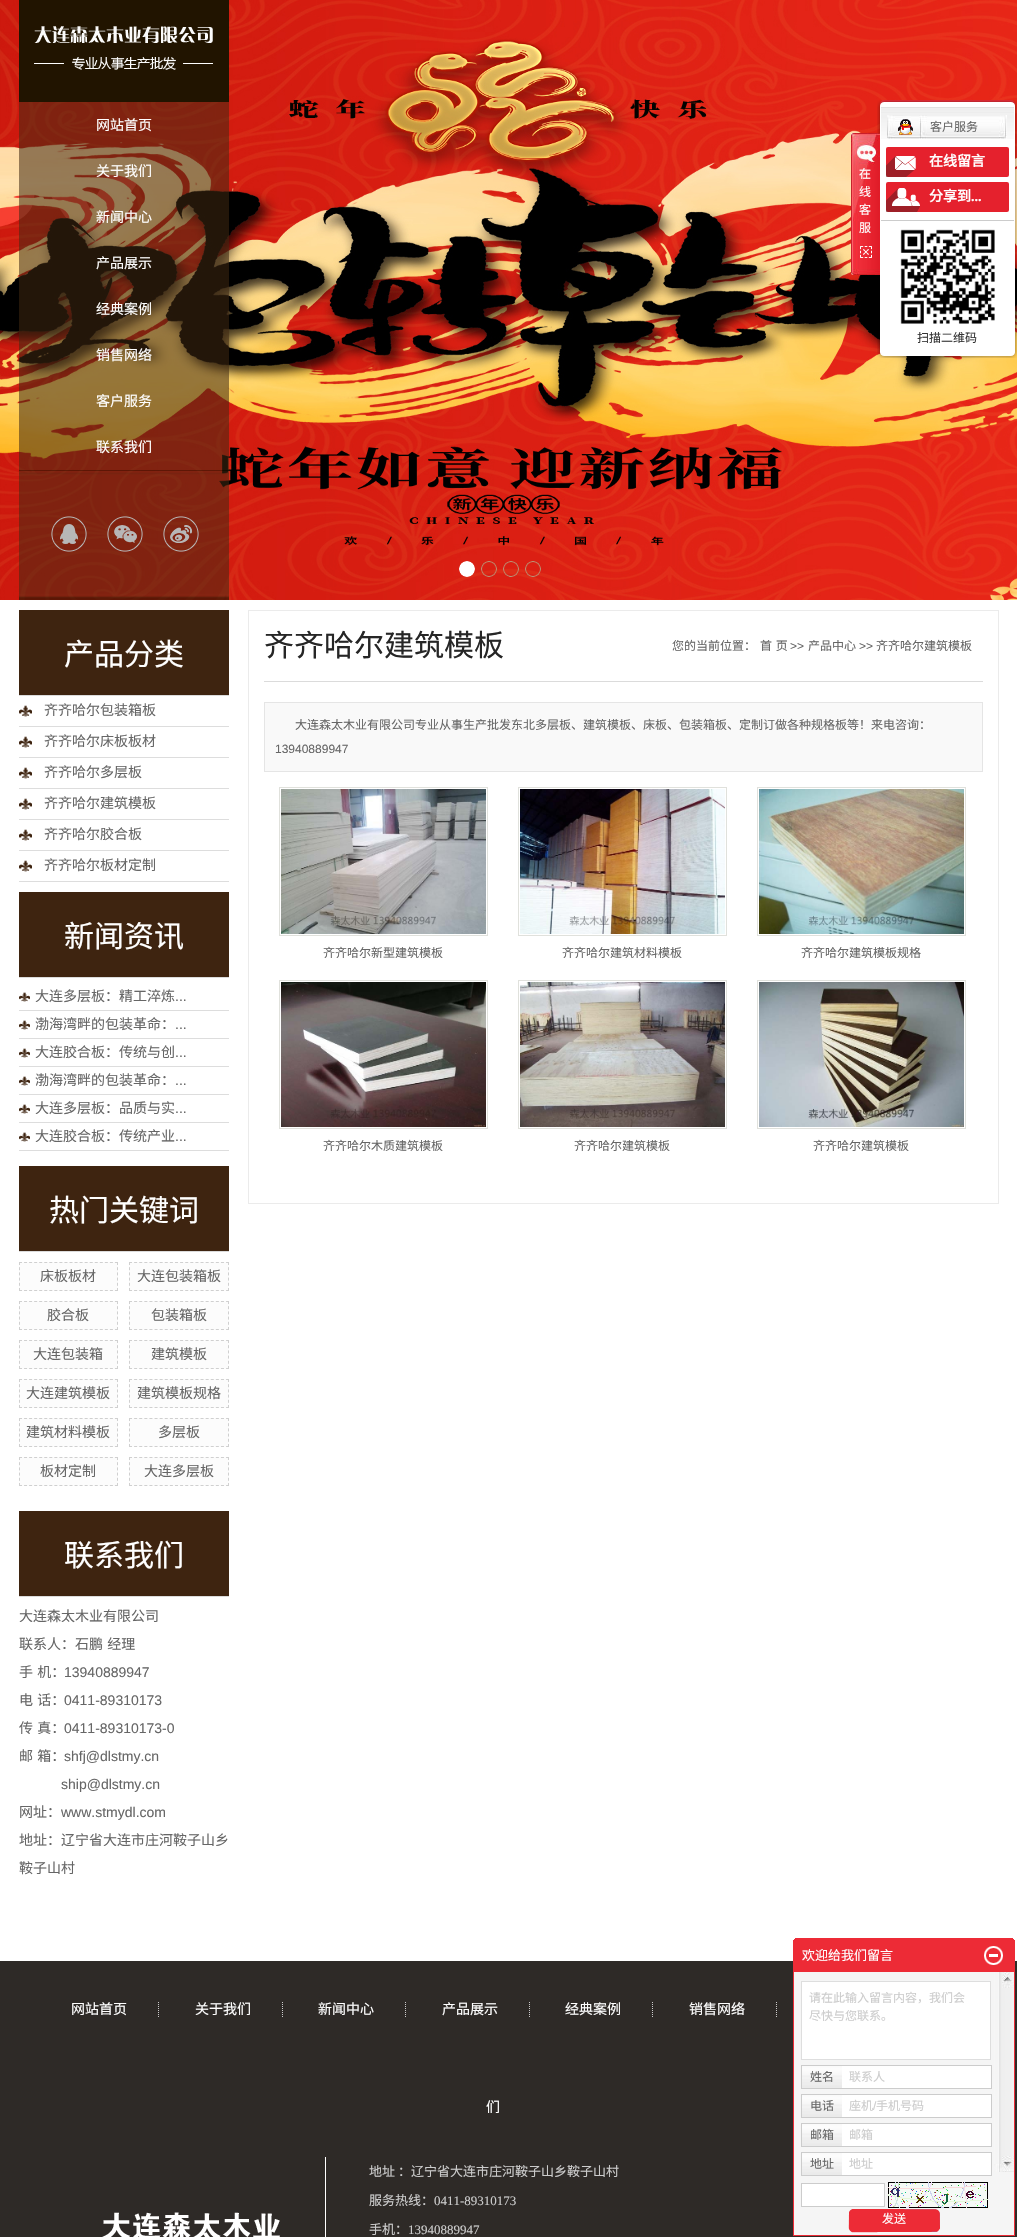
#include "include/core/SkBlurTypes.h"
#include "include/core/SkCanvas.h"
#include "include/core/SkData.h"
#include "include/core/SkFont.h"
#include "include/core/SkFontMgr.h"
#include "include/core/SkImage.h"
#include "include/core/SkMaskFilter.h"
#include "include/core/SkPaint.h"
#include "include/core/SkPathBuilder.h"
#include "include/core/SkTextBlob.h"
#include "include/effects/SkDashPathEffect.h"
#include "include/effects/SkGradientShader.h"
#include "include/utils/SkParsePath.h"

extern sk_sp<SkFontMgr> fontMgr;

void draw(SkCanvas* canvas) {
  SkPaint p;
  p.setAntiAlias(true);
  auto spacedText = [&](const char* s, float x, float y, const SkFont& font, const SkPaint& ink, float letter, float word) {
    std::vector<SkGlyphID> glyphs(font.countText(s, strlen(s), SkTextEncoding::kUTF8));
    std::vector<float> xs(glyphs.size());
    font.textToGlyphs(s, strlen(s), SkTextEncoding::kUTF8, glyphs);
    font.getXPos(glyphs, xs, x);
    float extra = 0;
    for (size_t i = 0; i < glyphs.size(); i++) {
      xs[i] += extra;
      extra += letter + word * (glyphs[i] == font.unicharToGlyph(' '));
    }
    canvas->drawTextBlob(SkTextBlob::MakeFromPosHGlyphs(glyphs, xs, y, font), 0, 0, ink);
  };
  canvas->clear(SK_ColorWHITE);
  canvas->drawImageRect(SkImages::DeferredFromEncodedData(SkData::MakeFromFileName("images/1.png")), SkRect::MakeLTRB(0, 0, 1017, 600), SkSamplingOptions());
  canvas->drawImageRect(SkImages::DeferredFromEncodedData(SkData::MakeFromFileName("images/2.png")), SkRect::MakeLTRB(459, 561, 475, 577), SkSamplingOptions());
  canvas->drawImageRect(SkImages::DeferredFromEncodedData(SkData::MakeFromFileName("images/3.png")), SkRect::MakeLTRB(481, 561, 497, 577), SkSamplingOptions());
  canvas->drawImageRect(SkImages::DeferredFromEncodedData(SkData::MakeFromFileName("images/4.png")), SkRect::MakeLTRB(503, 561, 519, 577), SkSamplingOptions());
  canvas->drawImageRect(SkImages::DeferredFromEncodedData(SkData::MakeFromFileName("images/5.png")), SkRect::MakeLTRB(525, 561, 541, 577), SkSamplingOptions());
  p.setColor(SkColorSetRGB(33, 20, 0));
  canvas->drawRect(SkRect::MakeLTRB(19, 0, 229, 102), p);
  canvas->drawImageRect(SkImages::DeferredFromEncodedData(SkData::MakeFromFileName("images/6.png")), SkRect::MakeLTRB(34, 26, 213, 70), SkSamplingOptions());
  p.setColor(SkColorSetARGB(140, 64, 40, 16));
  canvas->drawRect(SkRect::MakeLTRB(19, 102, 229, 148), p);
  canvas->drawRect(SkRect::MakeLTRB(19, 148, 229, 194), p);
  canvas->drawRect(SkRect::MakeLTRB(19, 194, 229, 240), p);
  canvas->drawRect(SkRect::MakeLTRB(19, 240, 229, 286), p);
  canvas->drawRect(SkRect::MakeLTRB(19, 286, 229, 332), p);
  canvas->drawRect(SkRect::MakeLTRB(19, 332, 229, 378), p);
  canvas->drawRect(SkRect::MakeLTRB(19, 378, 229, 424), p);
  canvas->drawRect(SkRect::MakeLTRB(19, 424, 229, 470), p);
  canvas->drawImageRect(SkImages::DeferredFromEncodedData(SkData::MakeFromFileName("images/7.png")), SkRect::MakeLTRB(19, 470, 229, 600), SkSamplingOptions());
  canvas->drawImageRect(SkImages::DeferredFromEncodedData(SkData::MakeFromFileName("images/8.png")), SkRect::MakeLTRB(51, 516, 87, 552), SkSamplingOptions());
  canvas->drawImageRect(SkImages::DeferredFromEncodedData(SkData::MakeFromFileName("images/9.png")), SkRect::MakeLTRB(107, 516, 143, 552), SkSamplingOptions());
  canvas->drawImageRect(SkImages::DeferredFromEncodedData(SkData::MakeFromFileName("images/10.png")), SkRect::MakeLTRB(163, 516, 199, 552), SkSamplingOptions());
  canvas->drawImageRect(SkImages::DeferredFromEncodedData(SkData::MakeFromFileName("images/14.png")), SkRect::MakeLTRB(877, 107, 1017, 350), SkSamplingOptions());
  canvas->drawImageRect(SkImages::DeferredFromEncodedData(SkData::MakeFromFileName("images/11.png")), SkRect::MakeLTRB(851, 133, 880, 275), SkSamplingOptions());
  canvas->drawImageRect(SkImages::DeferredFromEncodedData(SkData::MakeFromFileName("images/12.png")), SkRect::MakeLTRB(860, 246, 872, 258), SkSamplingOptions());
  canvas->drawImageRect(SkImages::DeferredFromEncodedData(SkData::MakeFromFileName("images/13.png")), SkRect::MakeLTRB(877, 100, 1017, 107), SkSamplingOptions());
  canvas->drawImageRect(SkImages::DeferredFromEncodedData(SkData::MakeFromFileName("images/15.png")), SkRect::MakeLTRB(881, 107, 1014, 139), SkSamplingOptions());
  canvas->drawImageRect(SkImages::DeferredFromEncodedData(SkData::MakeFromFileName("images/16.png")), SkRect::MakeLTRB(887, 115, 1007, 139), SkSamplingOptions());
  canvas->drawImageRect(SkImages::DeferredFromEncodedData(SkData::MakeFromFileName("images/17.png")), SkRect::MakeLTRB(898, 119, 913, 135), SkSamplingOptions());
  p.setColor(SkColorSetRGB(229, 33, 45));
  canvas->drawRoundRect(SkRect::MakeLTRB(886, 147, 1009, 177), 2, 2, p);
  canvas->drawImageRect(SkImages::DeferredFromEncodedData(SkData::MakeFromFileName("images/18.png")), SkRect::MakeLTRB(886, 156, 916, 177), SkSamplingOptions());
  canvas->drawRoundRect(SkRect::MakeLTRB(886, 182, 1009, 212), 2, 2, p);
  canvas->drawImageRect(SkImages::DeferredFromEncodedData(SkData::MakeFromFileName("images/19.png")), SkRect::MakeLTRB(886, 188, 920, 212), SkSamplingOptions());
  p.setColor(SkColorSetRGB(204, 204, 204));
  canvas->drawRect(SkRect::MakeLTRB(881, 220, 1014, 221), p);
  canvas->drawImageRect(SkImages::DeferredFromEncodedData(SkData::MakeFromFileName("images/20.png")), SkRect::MakeLTRB(900, 229, 995, 324), SkSamplingOptions());
  canvas->drawImageRect(SkImages::DeferredFromEncodedData(SkData::MakeFromFileName("images/21.png")), SkRect::MakeLTRB(877, 350, 1017, 358), SkSamplingOptions());
  p.setColor(SkColorSetRGB(62, 36, 16));
  canvas->drawRect(SkRect::MakeLTRB(19, 610, 229, 695), p);
  p.setColor(SkColorSetRGB(219, 219, 219));
  canvas->drawRect(SkRect::MakeLTRB(19, 695, 229, 696), p);
  canvas->drawImageRect(SkImages::DeferredFromEncodedData(SkData::MakeFromFileName("images/22.png")), SkRect::MakeLTRB(19, 705, 32, 717), SkSamplingOptions());
  p.setColor(SkColorSetRGB(221, 221, 221));
  canvas->drawRect(SkRect::MakeLTRB(19, 726, 229, 727), p);
  canvas->drawImageRect(SkImages::DeferredFromEncodedData(SkData::MakeFromFileName("images/22.png")), SkRect::MakeLTRB(19, 736, 32, 748), SkSamplingOptions());
  canvas->drawRect(SkRect::MakeLTRB(19, 757, 229, 758), p);
  canvas->drawImageRect(SkImages::DeferredFromEncodedData(SkData::MakeFromFileName("images/22.png")), SkRect::MakeLTRB(19, 767, 32, 779), SkSamplingOptions());
  canvas->drawRect(SkRect::MakeLTRB(19, 788, 229, 789), p);
  canvas->drawImageRect(SkImages::DeferredFromEncodedData(SkData::MakeFromFileName("images/22.png")), SkRect::MakeLTRB(19, 798, 32, 810), SkSamplingOptions());
  canvas->drawRect(SkRect::MakeLTRB(19, 819, 229, 820), p);
  canvas->drawImageRect(SkImages::DeferredFromEncodedData(SkData::MakeFromFileName("images/22.png")), SkRect::MakeLTRB(19, 829, 32, 841), SkSamplingOptions());
  canvas->drawRect(SkRect::MakeLTRB(19, 850, 229, 851), p);
  canvas->drawImageRect(SkImages::DeferredFromEncodedData(SkData::MakeFromFileName("images/22.png")), SkRect::MakeLTRB(19, 860, 32, 872), SkSamplingOptions());
  canvas->drawRect(SkRect::MakeLTRB(19, 881, 229, 882), p);
  p.setColor(SkColorSetRGB(62, 36, 16));
  canvas->drawRect(SkRect::MakeLTRB(19, 892, 229, 977), p);
  p.setColor(SkColorSetRGB(219, 219, 219));
  canvas->drawRect(SkRect::MakeLTRB(19, 977, 229, 978), p);
  canvas->drawImageRect(SkImages::DeferredFromEncodedData(SkData::MakeFromFileName("images/23.png")), SkRect::MakeLTRB(19, 992, 30, 1002), SkSamplingOptions());
  p.setColor(SkColorSetRGB(221, 221, 221));
  canvas->drawRect(SkRect::MakeLTRB(19, 1010, 229, 1011), p);
  canvas->drawImageRect(SkImages::DeferredFromEncodedData(SkData::MakeFromFileName("images/23.png")), SkRect::MakeLTRB(19, 1020, 30, 1030), SkSamplingOptions());
  canvas->drawRect(SkRect::MakeLTRB(19, 1038, 229, 1039), p);
  canvas->drawImageRect(SkImages::DeferredFromEncodedData(SkData::MakeFromFileName("images/23.png")), SkRect::MakeLTRB(19, 1048, 30, 1058), SkSamplingOptions());
  canvas->drawRect(SkRect::MakeLTRB(19, 1066, 229, 1067), p);
  canvas->drawImageRect(SkImages::DeferredFromEncodedData(SkData::MakeFromFileName("images/23.png")), SkRect::MakeLTRB(19, 1076, 30, 1086), SkSamplingOptions());
  canvas->drawRect(SkRect::MakeLTRB(19, 1094, 229, 1095), p);
  canvas->drawImageRect(SkImages::DeferredFromEncodedData(SkData::MakeFromFileName("images/23.png")), SkRect::MakeLTRB(19, 1104, 30, 1114), SkSamplingOptions());
  canvas->drawRect(SkRect::MakeLTRB(19, 1122, 229, 1123), p);
  canvas->drawImageRect(SkImages::DeferredFromEncodedData(SkData::MakeFromFileName("images/23.png")), SkRect::MakeLTRB(19, 1132, 30, 1142), SkSamplingOptions());
  canvas->drawRect(SkRect::MakeLTRB(19, 1150, 229, 1151), p);
  p.setColor(SkColorSetRGB(62, 36, 16));
  canvas->drawRect(SkRect::MakeLTRB(19, 1166, 229, 1251), p);
  p.setColor(SkColorSetRGB(219, 219, 219));
  canvas->drawRect(SkRect::MakeLTRB(19, 1251, 229, 1252), p);
  p.setColor(SkColorSetRGB(252, 252, 252));
  canvas->drawRect(SkRect::MakeLTRB(19, 1262, 118, 1291), p);
  p.setStyle(SkPaint::kStroke_Style);
  p.setStrokeWidth(1);
  p.setColor(SkColorSetRGB(208, 208, 208));
  p.setPathEffect(SkDashPathEffect::Make({{3, 2.05f}}, 0));
  canvas->drawPath(SkPathBuilder().moveTo(19, 1262.5f).lineTo(118, 1262.5f).detach(), p);
  p.setPathEffect(nullptr);
  p.setPathEffect(SkDashPathEffect::Make({{3, 2.2f}}, 0));
  canvas->drawPath(SkPathBuilder().moveTo(117.5f, 1262).lineTo(117.5f, 1291).detach(), p);
  p.setPathEffect(nullptr);
  p.setPathEffect(SkDashPathEffect::Make({{3, 2.05f}}, 0));
  canvas->drawPath(SkPathBuilder().moveTo(19, 1290.5f).lineTo(118, 1290.5f).detach(), p);
  p.setPathEffect(nullptr);
  p.setPathEffect(SkDashPathEffect::Make({{3, 2.2f}}, 0));
  canvas->drawPath(SkPathBuilder().moveTo(19.5f, 1262).lineTo(19.5f, 1291).detach(), p);
  p.setPathEffect(nullptr);
  p.setStyle(SkPaint::kFill_Style);
  p.setColor(SkColorSetRGB(252, 252, 252));
  canvas->drawRect(SkRect::MakeLTRB(129, 1262, 229, 1291), p);
  p.setStyle(SkPaint::kStroke_Style);
  p.setColor(SkColorSetRGB(208, 208, 208));
  p.setPathEffect(SkDashPathEffect::Make({{3, 2.11f}}, 0));
  canvas->drawPath(SkPathBuilder().moveTo(129, 1262.5f).lineTo(229, 1262.5f).detach(), p);
  p.setPathEffect(nullptr);
  p.setPathEffect(SkDashPathEffect::Make({{3, 2.2f}}, 0));
  canvas->drawPath(SkPathBuilder().moveTo(228.5f, 1262).lineTo(228.5f, 1291).detach(), p);
  p.setPathEffect(nullptr);
  p.setPathEffect(SkDashPathEffect::Make({{3, 2.11f}}, 0));
  canvas->drawPath(SkPathBuilder().moveTo(129, 1290.5f).lineTo(229, 1290.5f).detach(), p);
  p.setPathEffect(nullptr);
  p.setPathEffect(SkDashPathEffect::Make({{3, 2.2f}}, 0));
  canvas->drawPath(SkPathBuilder().moveTo(129.5f, 1262).lineTo(129.5f, 1291).detach(), p);
  p.setPathEffect(nullptr);
  p.setStyle(SkPaint::kFill_Style);
  p.setColor(SkColorSetRGB(252, 252, 252));
  canvas->drawRect(SkRect::MakeLTRB(19, 1301, 118, 1330), p);
  p.setStyle(SkPaint::kStroke_Style);
  p.setColor(SkColorSetRGB(208, 208, 208));
  p.setPathEffect(SkDashPathEffect::Make({{3, 2.05f}}, 0));
  canvas->drawPath(SkPathBuilder().moveTo(19, 1301.5f).lineTo(118, 1301.5f).detach(), p);
  p.setPathEffect(nullptr);
  p.setPathEffect(SkDashPathEffect::Make({{3, 2.2f}}, 0));
  canvas->drawPath(SkPathBuilder().moveTo(117.5f, 1301).lineTo(117.5f, 1330).detach(), p);
  p.setPathEffect(nullptr);
  p.setPathEffect(SkDashPathEffect::Make({{3, 2.05f}}, 0));
  canvas->drawPath(SkPathBuilder().moveTo(19, 1329.5f).lineTo(118, 1329.5f).detach(), p);
  p.setPathEffect(nullptr);
  p.setPathEffect(SkDashPathEffect::Make({{3, 2.2f}}, 0));
  canvas->drawPath(SkPathBuilder().moveTo(19.5f, 1301).lineTo(19.5f, 1330).detach(), p);
  p.setPathEffect(nullptr);
  p.setStyle(SkPaint::kFill_Style);
  p.setColor(SkColorSetRGB(252, 252, 252));
  canvas->drawRect(SkRect::MakeLTRB(129, 1301, 229, 1330), p);
  p.setStyle(SkPaint::kStroke_Style);
  p.setColor(SkColorSetRGB(208, 208, 208));
  p.setPathEffect(SkDashPathEffect::Make({{3, 2.11f}}, 0));
  canvas->drawPath(SkPathBuilder().moveTo(129, 1301.5f).lineTo(229, 1301.5f).detach(), p);
  p.setPathEffect(nullptr);
  p.setPathEffect(SkDashPathEffect::Make({{3, 2.2f}}, 0));
  canvas->drawPath(SkPathBuilder().moveTo(228.5f, 1301).lineTo(228.5f, 1330).detach(), p);
  p.setPathEffect(nullptr);
  p.setPathEffect(SkDashPathEffect::Make({{3, 2.11f}}, 0));
  canvas->drawPath(SkPathBuilder().moveTo(129, 1329.5f).lineTo(229, 1329.5f).detach(), p);
  p.setPathEffect(nullptr);
  p.setPathEffect(SkDashPathEffect::Make({{3, 2.2f}}, 0));
  canvas->drawPath(SkPathBuilder().moveTo(129.5f, 1301).lineTo(129.5f, 1330).detach(), p);
  p.setPathEffect(nullptr);
  p.setStyle(SkPaint::kFill_Style);
  p.setColor(SkColorSetRGB(252, 252, 252));
  canvas->drawRect(SkRect::MakeLTRB(19, 1340, 118, 1369), p);
  p.setStyle(SkPaint::kStroke_Style);
  p.setColor(SkColorSetRGB(208, 208, 208));
  p.setPathEffect(SkDashPathEffect::Make({{3, 2.05f}}, 0));
  canvas->drawPath(SkPathBuilder().moveTo(19, 1340.5f).lineTo(118, 1340.5f).detach(), p);
  p.setPathEffect(nullptr);
  p.setPathEffect(SkDashPathEffect::Make({{3, 2.2f}}, 0));
  canvas->drawPath(SkPathBuilder().moveTo(117.5f, 1340).lineTo(117.5f, 1369).detach(), p);
  p.setPathEffect(nullptr);
  p.setPathEffect(SkDashPathEffect::Make({{3, 2.05f}}, 0));
  canvas->drawPath(SkPathBuilder().moveTo(19, 1368.5f).lineTo(118, 1368.5f).detach(), p);
  p.setPathEffect(nullptr);
  p.setPathEffect(SkDashPathEffect::Make({{3, 2.2f}}, 0));
  canvas->drawPath(SkPathBuilder().moveTo(19.5f, 1340).lineTo(19.5f, 1369).detach(), p);
  p.setPathEffect(nullptr);
  p.setStyle(SkPaint::kFill_Style);
  p.setColor(SkColorSetRGB(252, 252, 252));
  canvas->drawRect(SkRect::MakeLTRB(129, 1340, 229, 1369), p);
  p.setStyle(SkPaint::kStroke_Style);
  p.setColor(SkColorSetRGB(208, 208, 208));
  p.setPathEffect(SkDashPathEffect::Make({{3, 2.11f}}, 0));
  canvas->drawPath(SkPathBuilder().moveTo(129, 1340.5f).lineTo(229, 1340.5f).detach(), p);
  p.setPathEffect(nullptr);
  p.setPathEffect(SkDashPathEffect::Make({{3, 2.2f}}, 0));
  canvas->drawPath(SkPathBuilder().moveTo(228.5f, 1340).lineTo(228.5f, 1369).detach(), p);
  p.setPathEffect(nullptr);
  p.setPathEffect(SkDashPathEffect::Make({{3, 2.11f}}, 0));
  canvas->drawPath(SkPathBuilder().moveTo(129, 1368.5f).lineTo(229, 1368.5f).detach(), p);
  p.setPathEffect(nullptr);
  p.setPathEffect(SkDashPathEffect::Make({{3, 2.2f}}, 0));
  canvas->drawPath(SkPathBuilder().moveTo(129.5f, 1340).lineTo(129.5f, 1369).detach(), p);
  p.setPathEffect(nullptr);
  p.setStyle(SkPaint::kFill_Style);
  p.setColor(SkColorSetRGB(252, 252, 252));
  canvas->drawRect(SkRect::MakeLTRB(19, 1379, 118, 1408), p);
  p.setStyle(SkPaint::kStroke_Style);
  p.setColor(SkColorSetRGB(208, 208, 208));
  p.setPathEffect(SkDashPathEffect::Make({{3, 2.05f}}, 0));
  canvas->drawPath(SkPathBuilder().moveTo(19, 1379.5f).lineTo(118, 1379.5f).detach(), p);
  p.setPathEffect(nullptr);
  p.setPathEffect(SkDashPathEffect::Make({{3, 2.2f}}, 0));
  canvas->drawPath(SkPathBuilder().moveTo(117.5f, 1379).lineTo(117.5f, 1408).detach(), p);
  p.setPathEffect(nullptr);
  p.setPathEffect(SkDashPathEffect::Make({{3, 2.05f}}, 0));
  canvas->drawPath(SkPathBuilder().moveTo(19, 1407.5f).lineTo(118, 1407.5f).detach(), p);
  p.setPathEffect(nullptr);
  p.setPathEffect(SkDashPathEffect::Make({{3, 2.2f}}, 0));
  canvas->drawPath(SkPathBuilder().moveTo(19.5f, 1379).lineTo(19.5f, 1408).detach(), p);
  p.setPathEffect(nullptr);
  p.setStyle(SkPaint::kFill_Style);
  p.setColor(SkColorSetRGB(252, 252, 252));
  canvas->drawRect(SkRect::MakeLTRB(129, 1379, 229, 1408), p);
  p.setStyle(SkPaint::kStroke_Style);
  p.setColor(SkColorSetRGB(208, 208, 208));
  p.setPathEffect(SkDashPathEffect::Make({{3, 2.11f}}, 0));
  canvas->drawPath(SkPathBuilder().moveTo(129, 1379.5f).lineTo(229, 1379.5f).detach(), p);
  p.setPathEffect(nullptr);
  p.setPathEffect(SkDashPathEffect::Make({{3, 2.2f}}, 0));
  canvas->drawPath(SkPathBuilder().moveTo(228.5f, 1379).lineTo(228.5f, 1408).detach(), p);
  p.setPathEffect(nullptr);
  p.setPathEffect(SkDashPathEffect::Make({{3, 2.11f}}, 0));
  canvas->drawPath(SkPathBuilder().moveTo(129, 1407.5f).lineTo(229, 1407.5f).detach(), p);
  p.setPathEffect(nullptr);
  p.setPathEffect(SkDashPathEffect::Make({{3, 2.2f}}, 0));
  canvas->drawPath(SkPathBuilder().moveTo(129.5f, 1379).lineTo(129.5f, 1408).detach(), p);
  p.setPathEffect(nullptr);
  p.setStyle(SkPaint::kFill_Style);
  p.setColor(SkColorSetRGB(252, 252, 252));
  canvas->drawRect(SkRect::MakeLTRB(19, 1418, 118, 1447), p);
  p.setStyle(SkPaint::kStroke_Style);
  p.setColor(SkColorSetRGB(208, 208, 208));
  p.setPathEffect(SkDashPathEffect::Make({{3, 2.05f}}, 0));
  canvas->drawPath(SkPathBuilder().moveTo(19, 1418.5f).lineTo(118, 1418.5f).detach(), p);
  p.setPathEffect(nullptr);
  p.setPathEffect(SkDashPathEffect::Make({{3, 2.2f}}, 0));
  canvas->drawPath(SkPathBuilder().moveTo(117.5f, 1418).lineTo(117.5f, 1447).detach(), p);
  p.setPathEffect(nullptr);
  p.setPathEffect(SkDashPathEffect::Make({{3, 2.05f}}, 0));
  canvas->drawPath(SkPathBuilder().moveTo(19, 1446.5f).lineTo(118, 1446.5f).detach(), p);
  p.setPathEffect(nullptr);
  p.setPathEffect(SkDashPathEffect::Make({{3, 2.2f}}, 0));
  canvas->drawPath(SkPathBuilder().moveTo(19.5f, 1418).lineTo(19.5f, 1447).detach(), p);
  p.setPathEffect(nullptr);
  p.setStyle(SkPaint::kFill_Style);
  p.setColor(SkColorSetRGB(252, 252, 252));
  canvas->drawRect(SkRect::MakeLTRB(129, 1418, 229, 1447), p);
  p.setStyle(SkPaint::kStroke_Style);
  p.setColor(SkColorSetRGB(208, 208, 208));
  p.setPathEffect(SkDashPathEffect::Make({{3, 2.11f}}, 0));
  canvas->drawPath(SkPathBuilder().moveTo(129, 1418.5f).lineTo(229, 1418.5f).detach(), p);
  p.setPathEffect(nullptr);
  p.setPathEffect(SkDashPathEffect::Make({{3, 2.2f}}, 0));
  canvas->drawPath(SkPathBuilder().moveTo(228.5f, 1418).lineTo(228.5f, 1447).detach(), p);
  p.setPathEffect(nullptr);
  p.setPathEffect(SkDashPathEffect::Make({{3, 2.11f}}, 0));
  canvas->drawPath(SkPathBuilder().moveTo(129, 1446.5f).lineTo(229, 1446.5f).detach(), p);
  p.setPathEffect(nullptr);
  p.setPathEffect(SkDashPathEffect::Make({{3, 2.2f}}, 0));
  canvas->drawPath(SkPathBuilder().moveTo(129.5f, 1418).lineTo(129.5f, 1447).detach(), p);
  p.setPathEffect(nullptr);
  p.setStyle(SkPaint::kFill_Style);
  p.setColor(SkColorSetRGB(252, 252, 252));
  canvas->drawRect(SkRect::MakeLTRB(19, 1457, 118, 1486), p);
  p.setStyle(SkPaint::kStroke_Style);
  p.setColor(SkColorSetRGB(208, 208, 208));
  p.setPathEffect(SkDashPathEffect::Make({{3, 2.05f}}, 0));
  canvas->drawPath(SkPathBuilder().moveTo(19, 1457.5f).lineTo(118, 1457.5f).detach(), p);
  p.setPathEffect(nullptr);
  p.setPathEffect(SkDashPathEffect::Make({{3, 2.2f}}, 0));
  canvas->drawPath(SkPathBuilder().moveTo(117.5f, 1457).lineTo(117.5f, 1486).detach(), p);
  p.setPathEffect(nullptr);
  p.setPathEffect(SkDashPathEffect::Make({{3, 2.05f}}, 0));
  canvas->drawPath(SkPathBuilder().moveTo(19, 1485.5f).lineTo(118, 1485.5f).detach(), p);
  p.setPathEffect(nullptr);
  p.setPathEffect(SkDashPathEffect::Make({{3, 2.2f}}, 0));
  canvas->drawPath(SkPathBuilder().moveTo(19.5f, 1457).lineTo(19.5f, 1486).detach(), p);
  p.setPathEffect(nullptr);
  p.setStyle(SkPaint::kFill_Style);
  p.setColor(SkColorSetRGB(252, 252, 252));
  canvas->drawRect(SkRect::MakeLTRB(129, 1457, 229, 1486), p);
  p.setStyle(SkPaint::kStroke_Style);
  p.setColor(SkColorSetRGB(208, 208, 208));
  p.setPathEffect(SkDashPathEffect::Make({{3, 2.11f}}, 0));
  canvas->drawPath(SkPathBuilder().moveTo(129, 1457.5f).lineTo(229, 1457.5f).detach(), p);
  p.setPathEffect(nullptr);
  p.setPathEffect(SkDashPathEffect::Make({{3, 2.2f}}, 0));
  canvas->drawPath(SkPathBuilder().moveTo(228.5f, 1457).lineTo(228.5f, 1486).detach(), p);
  p.setPathEffect(nullptr);
  p.setPathEffect(SkDashPathEffect::Make({{3, 2.11f}}, 0));
  canvas->drawPath(SkPathBuilder().moveTo(129, 1485.5f).lineTo(229, 1485.5f).detach(), p);
  p.setPathEffect(nullptr);
  p.setPathEffect(SkDashPathEffect::Make({{3, 2.2f}}, 0));
  canvas->drawPath(SkPathBuilder().moveTo(129.5f, 1457).lineTo(129.5f, 1486).detach(), p);
  p.setPathEffect(nullptr);
  p.setStyle(SkPaint::kFill_Style);
  p.setColor(SkColorSetRGB(62, 36, 16));
  canvas->drawRect(SkRect::MakeLTRB(19, 1511, 229, 1596), p);
  p.setColor(SkColorSetRGB(219, 219, 219));
  canvas->drawRect(SkRect::MakeLTRB(19, 1596, 229, 1597), p);
  p.setStyle(SkPaint::kStroke_Style);
  p.setColor(SkColorSetRGB(235, 235, 235));
  canvas->drawRect(SkRect::MakeLTRB(248.5f, 610.5f, 998.5f, 1203.5f), p);
  p.setStyle(SkPaint::kFill_Style);
  p.setColor(SkColorSetRGB(219, 219, 219));
  canvas->drawRect(SkRect::MakeLTRB(264, 681, 983, 682), p);
  p.setColor(SkColorSetRGB(249, 249, 249));
  canvas->drawRect(SkRect::MakeLTRB(264.5f, 702.5f, 982.5f, 771.5f), p);
  p.setStyle(SkPaint::kStroke_Style);
  p.setColor(SkColorSetRGB(229, 229, 229));
  canvas->drawRect(SkRect::MakeLTRB(264.5f, 702.5f, 982.5f, 771.5f), p);
  p.setColor(SkColorSetRGB(224, 225, 220));
  canvas->drawRect(SkRect::MakeLTRB(279.5f, 787.5f, 487.5f, 935.5f), p);
  canvas->drawImageRect(SkImages::DeferredFromEncodedData(SkData::MakeFromFileName("images/24.png")), SkRect::MakeLTRB(281, 789, 486, 934), SkSamplingOptions());
  canvas->drawRect(SkRect::MakeLTRB(518.5f, 787.5f, 726.5f, 935.5f), p);
  canvas->drawImageRect(SkImages::DeferredFromEncodedData(SkData::MakeFromFileName("images/25.png")), SkRect::MakeLTRB(520, 789, 725, 934), SkSamplingOptions());
  canvas->drawRect(SkRect::MakeLTRB(757.5f, 787.5f, 965.5f, 935.5f), p);
  canvas->drawImageRect(SkImages::DeferredFromEncodedData(SkData::MakeFromFileName("images/26.png")), SkRect::MakeLTRB(759, 789, 964, 934), SkSamplingOptions());
  canvas->drawRect(SkRect::MakeLTRB(279.5f, 980.5f, 487.5f, 1128.5f), p);
  canvas->drawImageRect(SkImages::DeferredFromEncodedData(SkData::MakeFromFileName("images/27.png")), SkRect::MakeLTRB(281, 982, 486, 1127), SkSamplingOptions());
  canvas->drawRect(SkRect::MakeLTRB(518.5f, 980.5f, 726.5f, 1128.5f), p);
  canvas->drawImageRect(SkImages::DeferredFromEncodedData(SkData::MakeFromFileName("images/28.png")), SkRect::MakeLTRB(520, 982, 725, 1127), SkSamplingOptions());
  canvas->drawRect(SkRect::MakeLTRB(757.5f, 980.5f, 965.5f, 1128.5f), p);
  canvas->drawImageRect(SkImages::DeferredFromEncodedData(SkData::MakeFromFileName("images/29.png")), SkRect::MakeLTRB(759, 982, 964, 1127), SkSamplingOptions());
  p.setStyle(SkPaint::kFill_Style);
  p.setColor(SkColorSetRGB(46, 42, 39));
  canvas->drawRect(SkRect::MakeLTRB(0, 1961, 1017, 2237), p);
  canvas->drawImageRect(SkImages::DeferredFromEncodedData(SkData::MakeFromFileName("images/30.png")), SkRect::MakeLTRB(158, 2002, 159, 2017), SkSamplingOptions());
  canvas->drawImageRect(SkImages::DeferredFromEncodedData(SkData::MakeFromFileName("images/30.png")), SkRect::MakeLTRB(282, 2002, 283, 2017), SkSamplingOptions());
  canvas->drawImageRect(SkImages::DeferredFromEncodedData(SkData::MakeFromFileName("images/30.png")), SkRect::MakeLTRB(405, 2002, 406, 2017), SkSamplingOptions());
  canvas->drawImageRect(SkImages::DeferredFromEncodedData(SkData::MakeFromFileName("images/30.png")), SkRect::MakeLTRB(529, 2002, 530, 2017), SkSamplingOptions());
  canvas->drawImageRect(SkImages::DeferredFromEncodedData(SkData::MakeFromFileName("images/30.png")), SkRect::MakeLTRB(652, 2002, 653, 2017), SkSamplingOptions());
  canvas->drawImageRect(SkImages::DeferredFromEncodedData(SkData::MakeFromFileName("images/30.png")), SkRect::MakeLTRB(776, 2002, 777, 2017), SkSamplingOptions());
  p.setColor(SK_ColorWHITE);
  canvas->drawRect(SkRect::MakeLTRB(325, 2157, 326, 2237), p);
  canvas->drawImageRect(SkImages::DeferredFromEncodedData(SkData::MakeFromFileName("images/31.png")), SkRect::MakeLTRB(102, 2212, 280, 2237), SkSamplingOptions());
  p.setColor(SkColorSetRGB(237, 43, 54));
  canvas->drawRect(SkRect::MakeLTRB(795, 1938, 1013, 1939), p);
  canvas->drawRect(SkRect::MakeLTRB(794, 1939, 1014, 1940), p);
  canvas->drawRect(SkRect::MakeLTRB(793, 1940, 1015, 1971), p);
  canvas->drawImageRect(SkImages::DeferredFromEncodedData(SkData::MakeFromFileName("images/32.png")), SkRect::MakeLTRB(984, 1946, 1003, 1965), SkSamplingOptions());
  canvas->drawImageRect(SkImages::DeferredFromEncodedData(SkData::MakeFromFileName("images/33.png")), SkRect::MakeLTRB(794, 1972, 1014, 2235), SkSamplingOptions());
  p.setStyle(SkPaint::kStroke_Style);
  canvas->drawRect(SkRect::MakeLTRB(793.5f, 1971.5f, 1014.5f, 2235.5f), p);
  p.setStyle(SkPaint::kFill_Style);
  p.setColor(SK_ColorWHITE);
  canvas->drawRect(SkRect::MakeLTRB(801.5f, 1981.5f, 990.5f, 2059.5f), p);
  p.setStyle(SkPaint::kStroke_Style);
  p.setColor(SkColorSetRGB(222, 222, 222));
  canvas->drawRect(SkRect::MakeLTRB(801.5f, 1981.5f, 990.5f, 2059.5f), p);
  p.setStyle(SkPaint::kFill_Style);
  p.setColor(SK_ColorWHITE);
  canvas->drawRect(SkRect::MakeLTRB(842, 2066, 991, 2088), p);
  p.setStyle(SkPaint::kStroke_Style);
  p.setColor(SkColorSetRGB(204, 204, 204));
  canvas->drawRect(SkRect::MakeLTRB(801.5f, 2065.5f, 991.5f, 2088.5f), p);
  canvas->drawImageRect(SkImages::DeferredFromEncodedData(SkData::MakeFromFileName("images/34.png")), SkRect::MakeLTRB(802, 2066, 842, 2088), SkSamplingOptions());
  p.setStyle(SkPaint::kFill_Style);
  p.setColor(SK_ColorWHITE);
  canvas->drawRect(SkRect::MakeLTRB(842, 2095, 991, 2117), p);
  p.setStyle(SkPaint::kStroke_Style);
  p.setColor(SkColorSetRGB(204, 204, 204));
  canvas->drawRect(SkRect::MakeLTRB(801.5f, 2094.5f, 991.5f, 2117.5f), p);
  canvas->drawImageRect(SkImages::DeferredFromEncodedData(SkData::MakeFromFileName("images/34.png")), SkRect::MakeLTRB(802, 2095, 842, 2117), SkSamplingOptions());
  p.setStyle(SkPaint::kFill_Style);
  p.setColor(SK_ColorWHITE);
  canvas->drawRect(SkRect::MakeLTRB(842, 2124, 991, 2146), p);
  p.setStyle(SkPaint::kStroke_Style);
  p.setColor(SkColorSetRGB(204, 204, 204));
  canvas->drawRect(SkRect::MakeLTRB(801.5f, 2123.5f, 991.5f, 2146.5f), p);
  canvas->drawImageRect(SkImages::DeferredFromEncodedData(SkData::MakeFromFileName("images/34.png")), SkRect::MakeLTRB(802, 2124, 842, 2146), SkSamplingOptions());
  p.setStyle(SkPaint::kFill_Style);
  p.setColor(SK_ColorWHITE);
  canvas->drawRect(SkRect::MakeLTRB(842, 2153, 991, 2175), p);
  p.setStyle(SkPaint::kStroke_Style);
  p.setColor(SkColorSetRGB(204, 204, 204));
  canvas->drawRect(SkRect::MakeLTRB(801.5f, 2152.5f, 991.5f, 2175.5f), p);
  canvas->drawImageRect(SkImages::DeferredFromEncodedData(SkData::MakeFromFileName("images/34.png")), SkRect::MakeLTRB(802, 2153, 842, 2175), SkSamplingOptions());
  p.setStyle(SkPaint::kFill_Style);
  p.setColor(SK_ColorWHITE);
  canvas->drawRect(SkRect::MakeLTRB(801.5f, 2183.5f, 884.5f, 2206.5f), p);
  p.setStyle(SkPaint::kStroke_Style);
  p.setColor(SkColorSetRGB(204, 204, 204));
  canvas->drawRect(SkRect::MakeLTRB(801.5f, 2183.5f, 884.5f, 2206.5f), p);
  canvas->drawImageRect(SkImages::DeferredFromEncodedData(SkData::MakeFromFileName("images/35.png")), SkRect::MakeLTRB(888, 2182, 988, 2208), SkSamplingOptions());
  canvas->drawImageRect(SkImages::DeferredFromEncodedData(SkData::MakeFromFileName("images/36.png")), SkRect::MakeLTRB(848, 2209, 940, 2233), SkSamplingOptions());
  SkFont font1(fontMgr->matchFamilyStyle("Noto Sans CJK SC", SkFontStyle::Normal()), 14);
  font1.setSubpixel(true);
  p.setStyle(SkPaint::kFill_Style);
  p.setColor(SK_ColorWHITE);
  canvas->drawString("网站首页", 96, 130, font1, p);
  canvas->drawString("关于我们", 96, 176, font1, p);
  canvas->drawString("新闻中心", 96, 222, font1, p);
  canvas->drawString("产品展示", 96, 268, font1, p);
  canvas->drawString("经典案例", 96, 314, font1, p);
  canvas->drawString("销售网络", 96, 360, font1, p);
  canvas->drawString("客户服务", 96, 406, font1, p);
  canvas->drawString("联系我们", 96, 452, font1, p);
  SkFont font2(fontMgr->matchFamilyStyle("Noto Sans CJK SC", SkFontStyle::Normal()), 12);
  font2.setSubpixel(true);
  canvas->drawString("在", 859, 178, font2, p);
  canvas->drawString("线", 859, 196, font2, p);
  canvas->drawString("客", 859, 214, font2, p);
  canvas->drawString("服", 859, 232, font2, p);
  p.setColor(SkColorSetRGB(102, 102, 102));
  canvas->drawString("客户服务", 930, 131, font2, p);
  SkFont font3(fontMgr->matchFamilyStyle("Noto Sans CJK SC", SkFontStyle::Bold()), 14);
  font3.setSubpixel(true);
  p.setColor(SK_ColorWHITE);
  canvas->drawString("在线留言", 929, 166, font3, p);
  canvas->drawString("分享到", 929, 201, font3, p);
  SkFont font4(fontMgr->matchFamilyStyle("Liberation Serif", SkFontStyle::Bold()), 14);
  font4.setSubpixel(true);
  canvas->drawString("...", 971, 201, font4, p);
  p.setColor(SkColorSetRGB(51, 51, 51));
  canvas->drawString("扫描二维码", 917, 342, font2, p);
  SkFont font5(fontMgr->matchFamilyStyle("Noto Sans CJK SC", SkFontStyle::Normal()), 30);
  font5.setSubpixel(true);
  p.setColor(SK_ColorWHITE);
  canvas->drawString("产品分类", 64, 665, font5, p);
  p.setColor(SkColorSetRGB(102, 102, 102));
  canvas->drawString("齐齐哈尔包装箱板", 44, 715, font1, p);
  canvas->drawString("齐齐哈尔床板板材", 44, 746, font1, p);
  canvas->drawString("齐齐哈尔多层板", 44, 777, font1, p);
  canvas->drawString("齐齐哈尔建筑模板", 44, 808, font1, p);
  canvas->drawString("齐齐哈尔胶合板", 44, 839, font1, p);
  canvas->drawString("齐齐哈尔板材定制", 44, 870, font1, p);
  p.setColor(SK_ColorWHITE);
  canvas->drawString("新闻资讯", 64, 947, font5, p);
  p.setColor(SkColorSetRGB(102, 102, 102));
  canvas->drawString("大连多层板：精工淬炼", 35, 1001, font1, p);
  SkFont font6(fontMgr->matchFamilyStyle("Liberation Sans", SkFontStyle::Normal()), 14);
  font6.setSubpixel(true);
  canvas->drawString("...", 175, 1001, font6, p);
  canvas->drawString("渤海湾畔的包装革命：", 35, 1029, font1, p);
  canvas->drawString("...", 175, 1029, font6, p);
  canvas->drawString("大连胶合板：传统与创", 35, 1057, font1, p);
  canvas->drawString("...", 175, 1057, font6, p);
  canvas->drawString("渤海湾畔的包装革命：", 35, 1085, font1, p);
  canvas->drawString("...", 175, 1085, font6, p);
  canvas->drawString("大连多层板：品质与实", 35, 1113, font1, p);
  canvas->drawString("...", 175, 1113, font6, p);
  canvas->drawString("大连胶合板：传统产业", 35, 1141, font1, p);
  canvas->drawString("...", 175, 1141, font6, p);
  p.setColor(SK_ColorWHITE);
  canvas->drawString("热门关键词", 49, 1221, font5, p);
  p.setColor(SkColorSetRGB(102, 102, 102));
  canvas->drawString("床板板材", 40, 1281, font1, p);
  canvas->drawString("大连包装箱板", 137, 1281, font1, p);
  canvas->drawString("胶合板", 47, 1320, font1, p);
  canvas->drawString("包装箱板", 151, 1320, font1, p);
  canvas->drawString("大连包装箱", 33, 1359, font1, p);
  canvas->drawString("建筑模板", 151, 1359, font1, p);
  canvas->drawString("大连建筑模板", 26, 1398, font1, p);
  canvas->drawString("建筑模板规格", 137, 1398, font1, p);
  canvas->drawString("建筑材料模板", 26, 1437, font1, p);
  canvas->drawString("多层板", 158, 1437, font1, p);
  canvas->drawString("板材定制", 40, 1476, font1, p);
  canvas->drawString("大连多层板", 144, 1476, font1, p);
  p.setColor(SK_ColorWHITE);
  canvas->drawString("联系我们", 64, 1566, font5, p);
  p.setColor(SkColorSetRGB(102, 102, 102));
  canvas->drawString("大连森太木业有限公司", 19, 1621, font1, p);
  spacedText("联系人：石鹏 经理", 19, 1649, font1, p, 0, 1);
  spacedText("手 机：", 19, 1677, font1, p, 0, 1);
  canvas->drawString("13940889947", 64, 1677, font6, p);
  spacedText("电 话：", 19, 1705, font1, p, 0, 1);
  canvas->drawString("0411-89310173", 64, 1705, font6, p);
  spacedText("传 真：", 19, 1733, font1, p, 0, 1);
  canvas->drawString("0411-89310173-0", 64, 1733, font6, p);
  spacedText("邮 箱：", 19, 1761, font1, p, 0, 1);
  canvas->drawString("shfj@dlstmy.cn", 64, 1761, font6, p);
  canvas->drawString("ship@dlstmy.cn", 61, 1789, font6, p);
  canvas->drawString("网址：", 19, 1817, font1, p);
  canvas->drawString("www.stmydl.com", 61, 1817, font6, p);
  canvas->drawString("地址：辽宁省大连市庄河鞍子山乡", 19, 1845, font1, p);
  canvas->drawString("鞍子山村", 19, 1873, font1, p);
  p.setColor(SkColorSetRGB(38, 38, 38));
  canvas->drawString("齐齐哈尔建筑模板", 264, 656, font5, p);
  p.setColor(SkColorSetRGB(102, 102, 102));
  canvas->drawString("您的当前位置：", 672, 650, font2, p);
  spacedText("首 页", 760, 650, font2, p, 0, 1);
  SkFont font7(fontMgr->matchFamilyStyle("Liberation Sans", SkFontStyle::Normal()), 12);
  font7.setSubpixel(true);
  canvas->drawString(">>", 790, 650, font7, p);
  canvas->drawString("产品中心", 808, 650, font2, p);
  canvas->drawString(">>", 859, 650, font7, p);
  canvas->drawString("齐齐哈尔建筑模板", 876, 650, font2, p);
  canvas->drawString("大连森太木业有限公司专业从事生产批发东北多层板、建筑模板、床板、包装箱板、定制订做各种规格板等！来电咨询：", 295, 729, font2, p);
  canvas->drawString("13940889947", 275, 753, font7, p);
  canvas->drawString("齐齐哈尔新型建筑模板", 323, 957, font2, p);
  canvas->drawString("齐齐哈尔建筑材料模板", 562, 957, font2, p);
  canvas->drawString("齐齐哈尔建筑模板规格", 801, 957, font2, p);
  canvas->drawString("齐齐哈尔木质建筑模板", 323, 1150, font2, p);
  canvas->drawString("齐齐哈尔建筑模板", 574, 1150, font2, p);
  canvas->drawString("齐齐哈尔建筑模板", 813, 1150, font2, p);
  p.setColor(SK_ColorWHITE);
  canvas->drawString("网站首页", 71, 2014, font1, p);
  canvas->drawString("关于我们", 195, 2014, font1, p);
  canvas->drawString("新闻中心", 318, 2014, font1, p);
  canvas->drawString("产品展示", 442, 2014, font1, p);
  canvas->drawString("经典案例", 565, 2014, font1, p);
  canvas->drawString("销售网络", 689, 2014, font1, p);
  canvas->drawString("们", 486, 2112, font1, p);
  SkFont font8(fontMgr->matchFamilyStyle("Noto Sans CJK SC", SkFontStyle::Normal()), 13);
  font8.setSubpixel(true);
  p.setColor(SkColorSetRGB(204, 204, 204));
  canvas->drawString("地址 ：辽宁省大连市庄河鞍子山乡鞍子山村", 369, 2176, font8, p);
  canvas->drawString("服务热线：", 369, 2205, font8, p);
  SkFont font9(fontMgr->matchFamilyStyle("Liberation Serif", SkFontStyle::Normal()), 13);
  font9.setSubpixel(true);
  canvas->drawString("0411-89310173", 434, 2205, font9, p);
  canvas->drawString("手机：", 369, 2234, font8, p);
  canvas->drawString("13940889947", 408, 2234, font9, p);
  p.setColor(SK_ColorWHITE);
  canvas->drawString("欢迎给我们留言", 802, 1960, font8, p);
  p.setColor(SkColorSetRGB(204, 204, 204));
  canvas->drawString("请在此输入留言内容，我们会", 809, 2002, font2, p);
  canvas->drawString("尽快与您联系。", 809, 2020, font2, p);
  p.setColor(SkColorSetRGB(102, 102, 102));
  canvas->drawString("姓名", 810, 2081, font2, p);
  p.setColor(SkColorSetRGB(204, 204, 204));
  canvas->drawString("联系人", 849, 2081, font2, p);
  p.setColor(SkColorSetRGB(102, 102, 102));
  canvas->drawString("电话", 810, 2110, font2, p);
  p.setColor(SkColorSetRGB(204, 204, 204));
  canvas->drawString("座机", 849, 2110, font2, p);
  canvas->drawString("/", 873, 2110, font7, p);
  canvas->drawString("手机号码", 876, 2110, font2, p);
  p.setColor(SkColorSetRGB(102, 102, 102));
  canvas->drawString("邮箱", 810, 2139, font2, p);
  p.setColor(SkColorSetRGB(204, 204, 204));
  canvas->drawString("邮箱", 849, 2139, font2, p);
  p.setColor(SkColorSetRGB(102, 102, 102));
  canvas->drawString("地址", 810, 2168, font2, p);
  p.setColor(SkColorSetRGB(204, 204, 204));
  canvas->drawString("地址", 849, 2168, font2, p);
  p.setColor(SK_ColorWHITE);
  canvas->drawString("发送", 882, 2223, font2, p);
}
